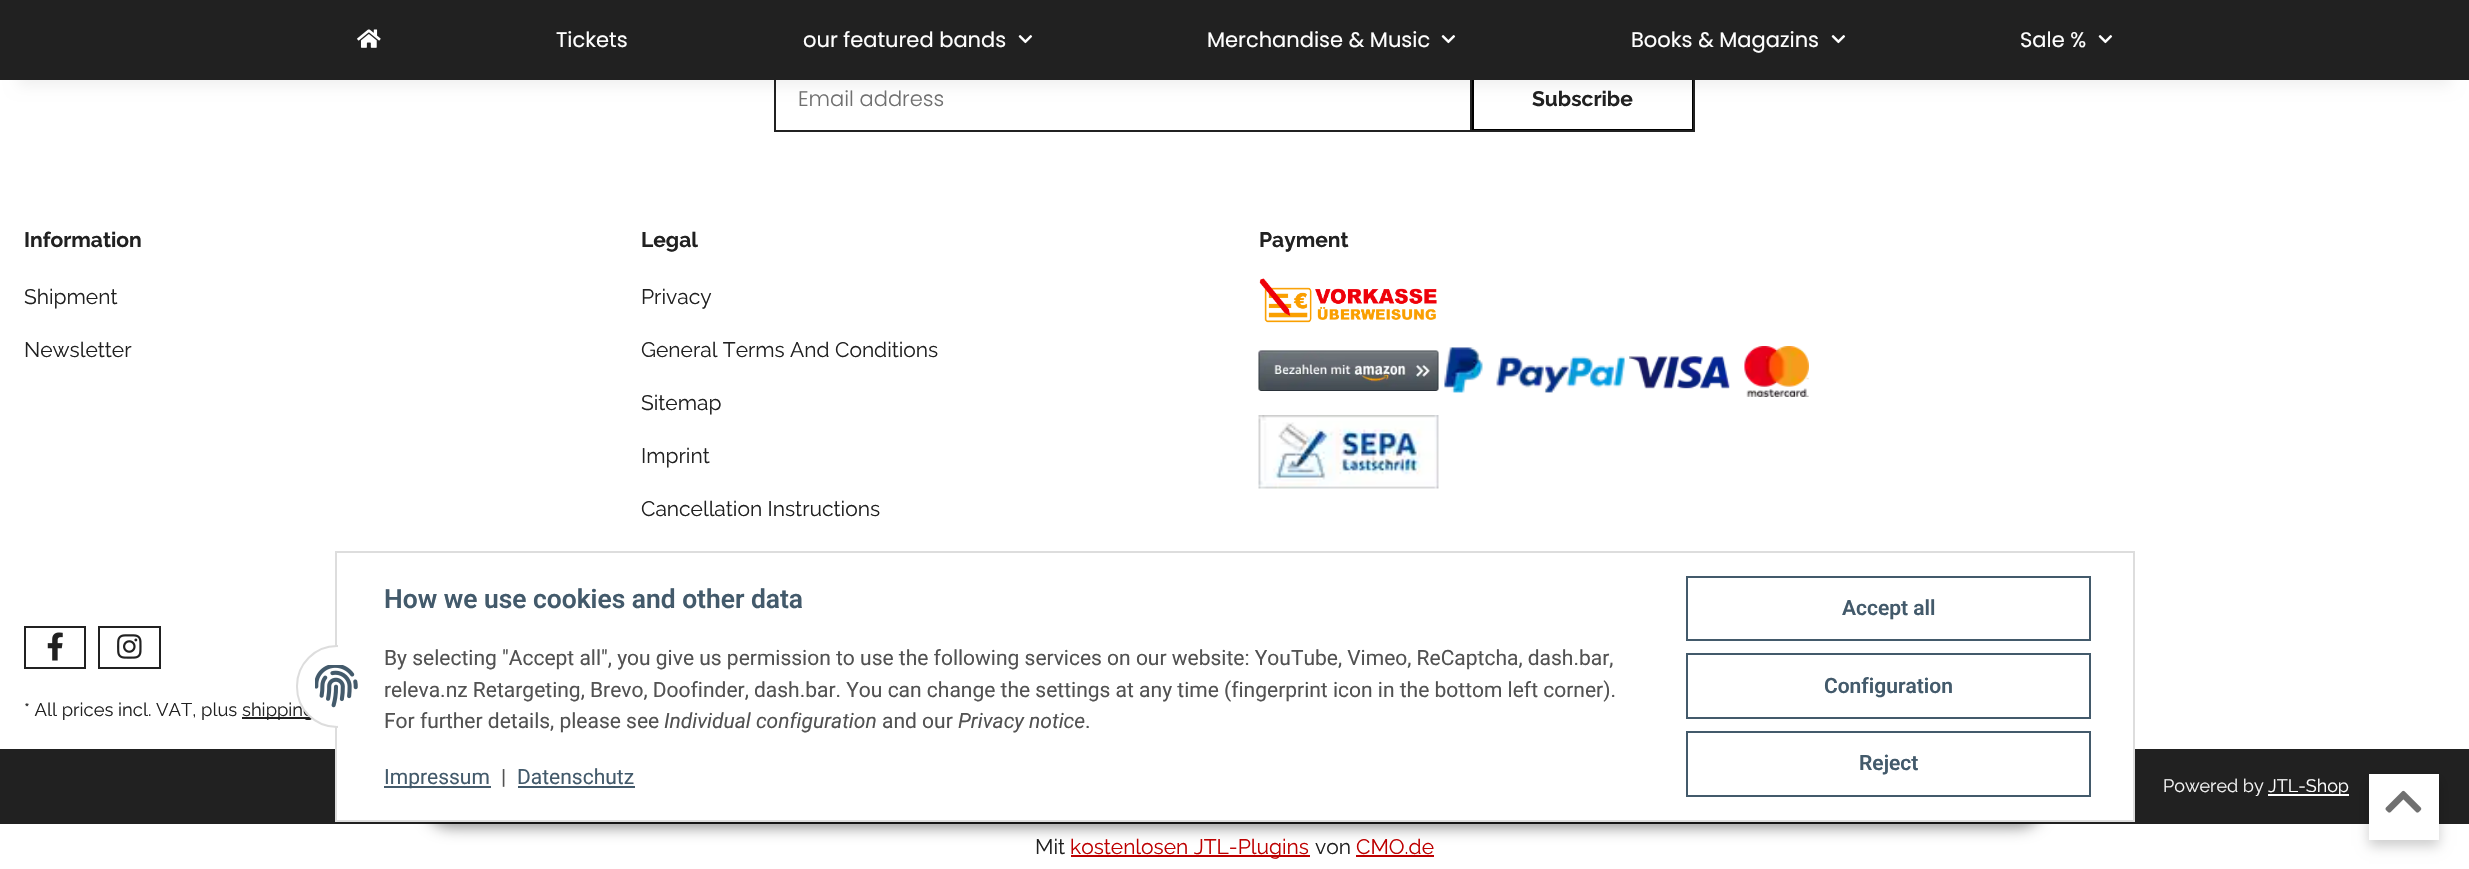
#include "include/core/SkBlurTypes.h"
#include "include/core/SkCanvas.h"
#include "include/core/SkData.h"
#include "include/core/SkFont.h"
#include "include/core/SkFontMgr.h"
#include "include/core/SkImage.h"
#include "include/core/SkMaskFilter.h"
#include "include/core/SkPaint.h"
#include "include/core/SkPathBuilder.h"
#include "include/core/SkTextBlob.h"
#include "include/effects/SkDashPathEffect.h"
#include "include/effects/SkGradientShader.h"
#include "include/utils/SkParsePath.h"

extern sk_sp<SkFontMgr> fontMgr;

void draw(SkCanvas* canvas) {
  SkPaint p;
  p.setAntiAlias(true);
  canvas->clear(SK_ColorWHITE);
  p.setStyle(SkPaint::kStroke_Style);
  p.setStrokeWidth(2);
  p.setColor(SkColorSetRGB(33, 33, 33));
  canvas->drawRect(SkRect::MakeLTRB(775, 69, 1471, 131), p);
  p.setColor(SK_ColorBLACK);
  canvas->drawRect(SkRect::MakeLTRB(1473, 70, 1693, 130), p);
  p.setColor(SkColorSetRGB(33, 33, 33));
  canvas->drawRect(SkRect::MakeLTRB(1471, 69, 1694, 131), p);
  p.setStyle(SkPaint::kFill_Style);
  p.setColor(SkColorSetARGB(15, 0, 0, 0));
  p.setMaskFilter(SkMaskFilter::MakeBlur(kNormal_SkBlurStyle, 7));
  canvas->drawRect(SkRect::MakeLTRB(18, 42, 2451, 86), p);
  p.setMaskFilter(nullptr);
  p.setColor(SkColorSetRGB(33, 33, 33));
  canvas->drawRect(SkRect::MakeLTRB(0, 0, 2469, 80), p);
  canvas->drawImageRect(SkImages::DeferredFromEncodedData(SkData::MakeFromFileName("images/1.png")), SkRect::MakeLTRB(357, 29, 381, 48), SkSamplingOptions());
  canvas->drawImageRect(SkImages::DeferredFromEncodedData(SkData::MakeFromFileName("images/2.png")), SkRect::MakeLTRB(1018, 35, 1033, 44), SkSamplingOptions());
  canvas->drawImageRect(SkImages::DeferredFromEncodedData(SkData::MakeFromFileName("images/2.png")), SkRect::MakeLTRB(1441, 35, 1456, 44), SkSamplingOptions());
  canvas->drawImageRect(SkImages::DeferredFromEncodedData(SkData::MakeFromFileName("images/2.png")), SkRect::MakeLTRB(1831, 35, 1846, 44), SkSamplingOptions());
  canvas->drawImageRect(SkImages::DeferredFromEncodedData(SkData::MakeFromFileName("images/2.png")), SkRect::MakeLTRB(2098, 35, 2113, 44), SkSamplingOptions());
  canvas->drawImageRect(SkImages::DeferredFromEncodedData(SkData::MakeFromFileName("images/3.png")), SkRect::MakeLTRB(1259, 278, 1437, 323), SkSamplingOptions());
  canvas->drawImageRect(SkImages::DeferredFromEncodedData(SkData::MakeFromFileName("images/4.png")), SkRect::MakeLTRB(1258, 350, 1439, 391), SkSamplingOptions());
  canvas->drawImageRect(SkImages::DeferredFromEncodedData(SkData::MakeFromFileName("images/5.png")), SkRect::MakeLTRB(1444, 347, 1625, 393), SkSamplingOptions());
  canvas->drawImageRect(SkImages::DeferredFromEncodedData(SkData::MakeFromFileName("images/6.png")), SkRect::MakeLTRB(1629, 346, 1809, 397), SkSamplingOptions());
  canvas->drawImageRect(SkImages::DeferredFromEncodedData(SkData::MakeFromFileName("images/7.png")), SkRect::MakeLTRB(1258, 415, 1439, 489), SkSamplingOptions());
  p.setStyle(SkPaint::kStroke_Style);
  canvas->drawRect(SkRect::MakeLTRB(25, 627, 85, 668), p);
  canvas->drawImageRect(SkImages::DeferredFromEncodedData(SkData::MakeFromFileName("images/8.png")), SkRect::MakeLTRB(47, 632, 63, 661), SkSamplingOptions());
  canvas->drawRect(SkRect::MakeLTRB(99, 627, 160, 668), p);
  canvas->drawImageRect(SkImages::DeferredFromEncodedData(SkData::MakeFromFileName("images/9.png")), SkRect::MakeLTRB(117, 634, 142, 659), SkSamplingOptions());
  p.setStyle(SkPaint::kFill_Style);
  canvas->drawRect(SkRect::MakeLTRB(242, 717, 312, 719), p);
  canvas->drawRect(SkRect::MakeLTRB(0, 749, 2469, 824), p);
  p.setColor(SK_ColorWHITE);
  canvas->drawRect(SkRect::MakeLTRB(2268, 794, 2349, 796), p);
  p.setColor(SkColorSetARGB(51, 0, 0, 0));
  p.setMaskFilter(SkMaskFilter::MakeBlur(kNormal_SkBlurStyle, 6));
  canvas->drawRect(SkRect::MakeLTRB(2369, 780, 2439, 846), p);
  p.setMaskFilter(nullptr);
  p.setColor(SK_ColorWHITE);
  canvas->drawRect(SkRect::MakeLTRB(2369, 774, 2439, 840), p);
  canvas->drawImageRect(SkImages::DeferredFromEncodedData(SkData::MakeFromFileName("images/10.png")), SkRect::MakeLTRB(2385, 790, 2422, 813), SkSamplingOptions());
  p.setColor(SkColorSetARGB(115, 0, 0, 0));
  p.setMaskFilter(SkMaskFilter::MakeBlur(kNormal_SkBlurStyle, 7.5f));
  canvas->drawRoundRect(SkRect::MakeLTRB(426, 779, 2043, 827), 24, 24, p);
  p.setMaskFilter(nullptr);
  p.setColor(SK_ColorWHITE);
  canvas->drawRect(SkRect::MakeLTRB(337, 749, 2133, 820), p);
  p.setStyle(SkPaint::kStroke_Style);
  p.setColor(SkColorSetRGB(221, 221, 221));
  canvas->drawRect(SkRect::MakeLTRB(336, 552, 2134, 821), p);
  p.setStyle(SkPaint::kFill_Style);
  p.setColor(SkColorSetRGB(67, 90, 107));
  canvas->drawRect(SkRect::MakeLTRB(384, 786, 491, 788), p);
  canvas->drawRect(SkRect::MakeLTRB(518, 786, 635, 788), p);
  p.setStyle(SkPaint::kStroke_Style);
  canvas->drawRect(SkRect::MakeLTRB(1687, 577, 2090, 640), p);
  canvas->drawRect(SkRect::MakeLTRB(1687, 654, 2090, 718), p);
  canvas->drawRect(SkRect::MakeLTRB(1687, 732, 2090, 796), p);
  p.setStyle(SkPaint::kFill_Style);
  p.setColor(SkColorSetRGB(189, 0, 0));
  canvas->drawRect(SkRect::MakeLTRB(1071, 855, 1310, 857), p);
  canvas->drawRect(SkRect::MakeLTRB(1356, 855, 1434, 857), p);
  SkFont font1(fontMgr->matchFamilyStyle("Poppins", SkFontStyle::Normal()), 21);
  font1.setSubpixel(true);
  p.setColor(SK_ColorWHITE);
  canvas->drawString("Tickets", 556, 47, font1, p);
  canvas->drawString("our featured bands", 803, 47, font1, p);
  canvas->drawString("Merchandise & Music", 1207, 47, font1, p);
  canvas->drawString("Books & Magazins", 1631, 47, font1, p);
  canvas->drawString("Sale %", 2020, 47, font1, p);
  SkFont font2(fontMgr->matchFamilyStyle("Poppins", SkFontStyle(300, SkFontStyle::kNormal_Width, SkFontStyle::kUpright_Slant)), 21);
  font2.setSubpixel(true);
  p.setColor(SkColorSetRGB(112, 112, 112));
  canvas->drawString("Email address", 798, 106, font2, p);
  SkFont font3(fontMgr->matchFamilyStyle("Raleway", SkFontStyle::Bold()), 21);
  font3.setSubpixel(true);
  p.setColor(SkColorSetRGB(33, 33, 33));
  canvas->drawString("Subscribe", 1532, 106, font3, p);
  canvas->drawString("Information", 24, 247, font3, p);
  SkFont font4(fontMgr->matchFamilyStyle("Raleway", SkFontStyle::Normal()), 21);
  font4.setSubpixel(true);
  canvas->drawString("Shipment", 24, 304, font4, p);
  canvas->drawString("Newsletter", 24, 357, font4, p);
  canvas->drawString("Legal", 641, 247, font3, p);
  canvas->drawString("Privacy", 641, 304, font4, p);
  canvas->drawString("General Terms And Conditions", 641, 357, font4, p);
  canvas->drawString("Sitemap", 641, 410, font4, p);
  canvas->drawString("Imprint", 641, 463, font4, p);
  canvas->drawString("Cancellation Instructions", 641, 516, font4, p);
  canvas->drawString("Payment", 1259, 247, font3, p);
  SkFont font5(fontMgr->matchFamilyStyle("Raleway", SkFontStyle::Normal()), 18.4f);
  font5.setSubpixel(true);
  canvas->drawString("* All prices incl. VAT, plus", 24, 716, font5, p);
  canvas->drawString("shipping", 242, 716, font5, p);
  SkFont font6(fontMgr->matchFamilyStyle("Raleway", SkFontStyle::Normal()), 18);
  font6.setSubpixel(true);
  p.setColor(SkColorSetRGB(245, 245, 245));
  canvas->drawString("Powered by", 2163, 792, font6, p);
  p.setColor(SK_ColorWHITE);
  canvas->drawString("JTL-Shop", 2268, 792, font6, p);
  canvas->drawRoundRect(SkRect::MakeLTRB(297, 646, 377, 727), 40, 40, p);
  p.setStyle(SkPaint::kStroke_Style);
  p.setColor(SkColorSetRGB(221, 221, 221));
  canvas->drawRoundRect(SkRect::MakeLTRB(297, 646, 377, 727), 40, 40, p);
  p.setStyle(SkPaint::kFill_Style);
  p.setColor(SK_ColorWHITE);
  canvas->drawRect(SkRect::MakeLTRB(338, 645, 378, 728), p);
  canvas->drawImageRect(SkImages::DeferredFromEncodedData(SkData::MakeFromFileName("images/11.png")), SkRect::MakeLTRB(315, 665, 358, 708), SkSamplingOptions());
  SkFont font7(fontMgr->matchFamilyStyle("Roboto", SkFontStyle(600, SkFontStyle::kNormal_Width, SkFontStyle::kUpright_Slant)), 26.4f);
  font7.setSubpixel(true);
  p.setColor(SkColorSetRGB(67, 90, 107));
  canvas->drawString("How we use cookies and other data", 384, 608, font7, p);
  SkFont font8(fontMgr->matchFamilyStyle("Roboto", SkFontStyle::Normal()), 21);
  font8.setSubpixel(true);
  p.setColor(SkColorSetRGB(82, 82, 82));
  canvas->drawString("By selecting \"Accept all\", you give us permission to use the following services on our website: YouTube, Vimeo, ReCaptcha, dash.bar,", 384, 665, font8, p);
  canvas->drawString("releva.nz Retargeting, Brevo, Doofinder, dash.bar. You can change the settings at any time (fingerprint icon in the bottom left corner).", 384, 697, font8, p);
  canvas->drawString("For further details, please see", 384, 728, font8, p);
  SkFont font9(fontMgr->matchFamilyStyle("Roboto", SkFontStyle::Italic()), 21);
  font9.setSubpixel(true);
  canvas->drawString("Individual configuration", 664, 728, font9, p);
  canvas->drawString("and our", 882, 728, font8, p);
  canvas->drawString("Privacy notice", 958, 728, font9, p);
  canvas->drawString(".", 1085, 728, font8, p);
  p.setColor(SkColorSetRGB(67, 90, 107));
  canvas->drawString("Impressum", 384, 784, font8, p);
  p.setColor(SkColorSetRGB(82, 82, 82));
  canvas->drawString("|", 501, 784, font8, p);
  p.setColor(SkColorSetRGB(67, 90, 107));
  canvas->drawString("Datenschutz", 517, 784, font8, p);
  SkFont font10(fontMgr->matchFamilyStyle("Roboto", SkFontStyle(600, SkFontStyle::kNormal_Width, SkFontStyle::kUpright_Slant)), 21);
  font10.setSubpixel(true);
  canvas->drawString("Accept all", 1842, 615, font10, p);
  canvas->drawString("Configuration", 1824, 693, font10, p);
  canvas->drawString("Reject", 1859, 770, font10, p);
  p.setColor(SkColorSetRGB(33, 33, 33));
  canvas->drawString("Mit", 1035, 854, font4, p);
  p.setColor(SkColorSetRGB(189, 0, 0));
  canvas->drawString("kostenlosen JTL-Plugins", 1070, 854, font4, p);
  p.setColor(SkColorSetRGB(33, 33, 33));
  canvas->drawString("von", 1315, 854, font4, p);
  p.setColor(SkColorSetRGB(189, 0, 0));
  canvas->drawString("CMO.de", 1356, 854, font4, p);
}
